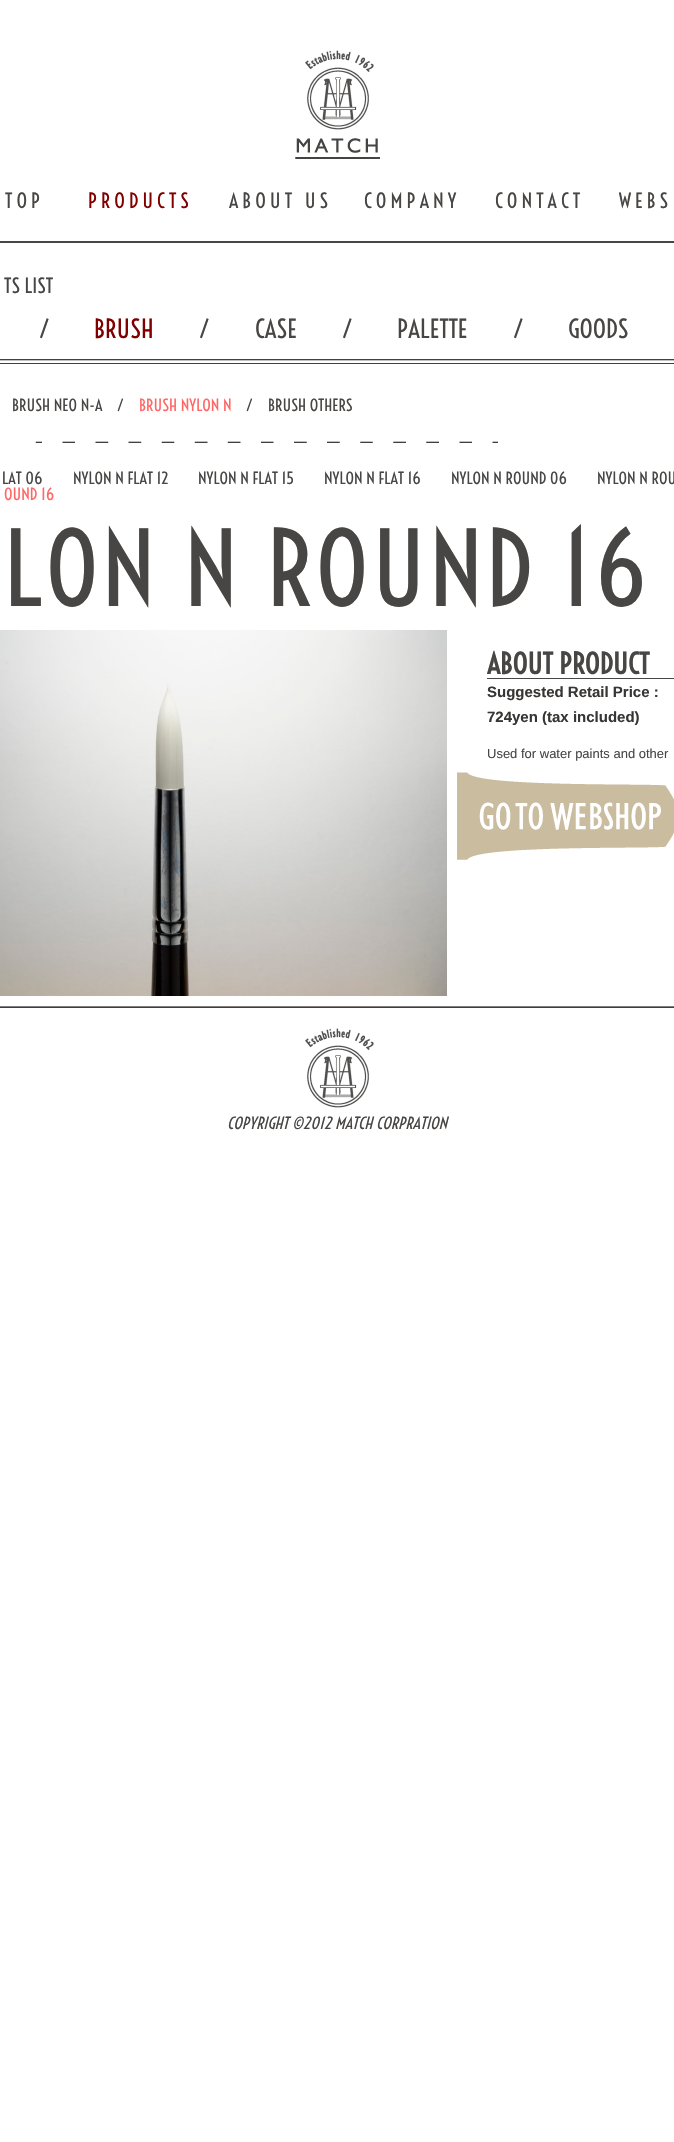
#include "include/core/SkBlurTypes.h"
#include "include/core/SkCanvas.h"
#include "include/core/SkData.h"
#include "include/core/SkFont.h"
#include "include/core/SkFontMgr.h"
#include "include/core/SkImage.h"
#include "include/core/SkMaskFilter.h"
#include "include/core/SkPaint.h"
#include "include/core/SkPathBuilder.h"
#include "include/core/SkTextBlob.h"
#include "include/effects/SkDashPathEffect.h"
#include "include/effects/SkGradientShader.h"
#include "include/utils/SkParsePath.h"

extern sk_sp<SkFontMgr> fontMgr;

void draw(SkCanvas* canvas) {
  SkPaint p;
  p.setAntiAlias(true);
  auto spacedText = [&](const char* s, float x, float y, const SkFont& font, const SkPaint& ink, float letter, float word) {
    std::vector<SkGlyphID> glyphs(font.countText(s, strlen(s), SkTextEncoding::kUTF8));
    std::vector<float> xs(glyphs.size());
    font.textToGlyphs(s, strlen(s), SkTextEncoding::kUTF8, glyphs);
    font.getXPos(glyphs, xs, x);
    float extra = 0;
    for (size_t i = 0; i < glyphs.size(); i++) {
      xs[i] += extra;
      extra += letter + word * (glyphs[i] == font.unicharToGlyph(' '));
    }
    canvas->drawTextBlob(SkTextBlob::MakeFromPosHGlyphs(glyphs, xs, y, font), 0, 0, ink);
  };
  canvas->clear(SK_ColorWHITE);
  canvas->drawImageRect(SkImages::DeferredFromEncodedData(SkData::MakeFromFileName("images/1.png")), SkRect::MakeLTRB(305, 50, 374, 130), SkSamplingOptions());
  canvas->drawImageRect(SkImages::DeferredFromEncodedData(SkData::MakeFromFileName("images/2.png")), SkRect::MakeLTRB(295, 138, 380, 159), SkSamplingOptions());
  p.setColor(SkColorSetRGB(72, 70, 68));
  canvas->drawRect(SkRect::MakeLTRB(0, 241, 674, 243), p);
  canvas->drawImageRect(SkImages::DeferredFromEncodedData(SkData::MakeFromFileName("images/3.png")), SkRect::MakeLTRB(0, 359, 674, 364), SkSamplingOptions());
  canvas->drawImageRect(SkImages::DeferredFromEncodedData(SkData::MakeFromFileName("images/4.png")), SkRect::MakeLTRB(35, 441, 498, 443), SkSamplingOptions());
  canvas->drawImageRect(SkImages::DeferredFromEncodedData(SkData::MakeFromFileName("images/5.png")), SkRect::MakeLTRB(0, 630, 447, 996), SkSamplingOptions());
  canvas->drawRect(SkRect::MakeLTRB(487, 678, 674, 679), p);
  canvas->drawImageRect(SkImages::DeferredFromEncodedData(SkData::MakeFromFileName("images/6.png")), SkRect::MakeLTRB(457, 772, 674, 860), SkSamplingOptions());
  canvas->drawImageRect(SkImages::DeferredFromEncodedData(SkData::MakeFromFileName("images/7.png")), SkRect::MakeLTRB(0, 1006, 674, 1008), SkSamplingOptions());
  canvas->drawImageRect(SkImages::DeferredFromEncodedData(SkData::MakeFromFileName("images/1.png")), SkRect::MakeLTRB(305, 1028, 374, 1108), SkSamplingOptions());
  SkFont font1(fontMgr->matchFamilyStyle("Voltaire", SkFontStyle::Normal()), 20);
  font1.setSubpixel(true);
  spacedText("TOP", 5, 208, font1, p, 4, 0);
  p.setColor(SkColorSetRGB(128, 0, 0));
  spacedText("PRODUCTS", 88, 208, font1, p, 4, 0);
  p.setColor(SkColorSetRGB(72, 70, 68));
  spacedText("ABOUT US", 229, 208, font1, p, 4, 0);
  spacedText("COMPANY", 364, 208, font1, p, 4, 0);
  spacedText("CONTACT", 495, 208, font1, p, 4, 0);
  spacedText("WEBS", 619, 208, font1, p, 4, 0);
  canvas->drawString("TS LIST", 4, 293, font1, p);
  SkFont font2(fontMgr->matchFamilyStyle("Voltaire", SkFontStyle::Normal()), 25);
  font2.setSubpixel(true);
  canvas->drawString("/", 39, 338, font2, p);
  p.setColor(SkColorSetRGB(128, 0, 0));
  canvas->drawString("BRUSH", 94, 338, font2, p);
  p.setColor(SkColorSetRGB(72, 70, 68));
  canvas->drawString("/", 199, 338, font2, p);
  canvas->drawString("CASE", 255, 338, font2, p);
  canvas->drawString("/", 342, 338, font2, p);
  canvas->drawString("PALETTE", 397, 338, font2, p);
  canvas->drawString("/", 513, 338, font2, p);
  canvas->drawString("GOODS", 568, 338, font2, p);
  SkFont font3(fontMgr->matchFamilyStyle("Voltaire", SkFontStyle::Normal()), 16);
  font3.setSubpixel(true);
  canvas->drawString("BRUSH NEO N-A", 12, 411, font3, p);
  canvas->drawString("/", 117, 411, font3, p);
  p.setColor(SkColorSetRGB(255, 102, 102));
  canvas->drawString("BRUSH NYLON N", 139, 411, font3, p);
  p.setColor(SkColorSetRGB(72, 70, 68));
  canvas->drawString("/", 246, 411, font3, p);
  canvas->drawString("BRUSH OTHERS", 268, 411, font3, p);
  canvas->drawString("LAT 06", 2, 484, font3, p);
  canvas->drawString("NYLON N FLAT 12", 73, 484, font3, p);
  canvas->drawString("NYLON N FLAT 15", 198, 484, font3, p);
  canvas->drawString("NYLON N FLAT 16", 324, 484, font3, p);
  canvas->drawString("NYLON N ROUND 06", 451, 484, font3, p);
  canvas->drawString("NYLON N ROU", 597, 484, font3, p);
  p.setColor(SkColorSetRGB(255, 102, 102));
  canvas->drawString("OUND 16", 4, 500, font3, p);
  SkFont font4(fontMgr->matchFamilyStyle("Voltaire", SkFontStyle::Normal()), 100);
  font4.setSubpixel(true);
  p.setColor(SkColorSetRGB(72, 70, 68));
  spacedText("LON N ROUND 16", 4, 606, font4, p, 3, 0);
  SkFont font5(fontMgr->matchFamilyStyle("Voltaire", SkFontStyle::Bold()), 28);
  font5.setSubpixel(true);
  canvas->drawString("ABOUT PRODUCT", 487, 674, font5, p);
  SkFont font6(fontMgr->matchFamilyStyle("Liberation Sans", SkFontStyle::Bold()), 15);
  font6.setSubpixel(true);
  p.setColor(SkColorSetRGB(56, 54, 52));
  canvas->drawString("Suggested Retail Price :", 487, 697, font6, p);
  canvas->drawString("724yen (tax included)", 487, 722, font6, p);
  SkFont font7(fontMgr->matchFamilyStyle("Liberation Sans", SkFontStyle::Normal()), 13);
  font7.setSubpixel(true);
  p.setColor(SkColorSetRGB(72, 70, 68));
  canvas->drawString("Used for water paints and other", 487, 758, font7, p);
  SkFont font8(fontMgr->matchFamilyStyle("Voltaire", SkFontStyle::Italic()), 16);
  font8.setSubpixel(true);
  canvas->drawString("COPYRIGHT ©2012 MATCH CORPRATION", 227, 1129, font8, p);
}
